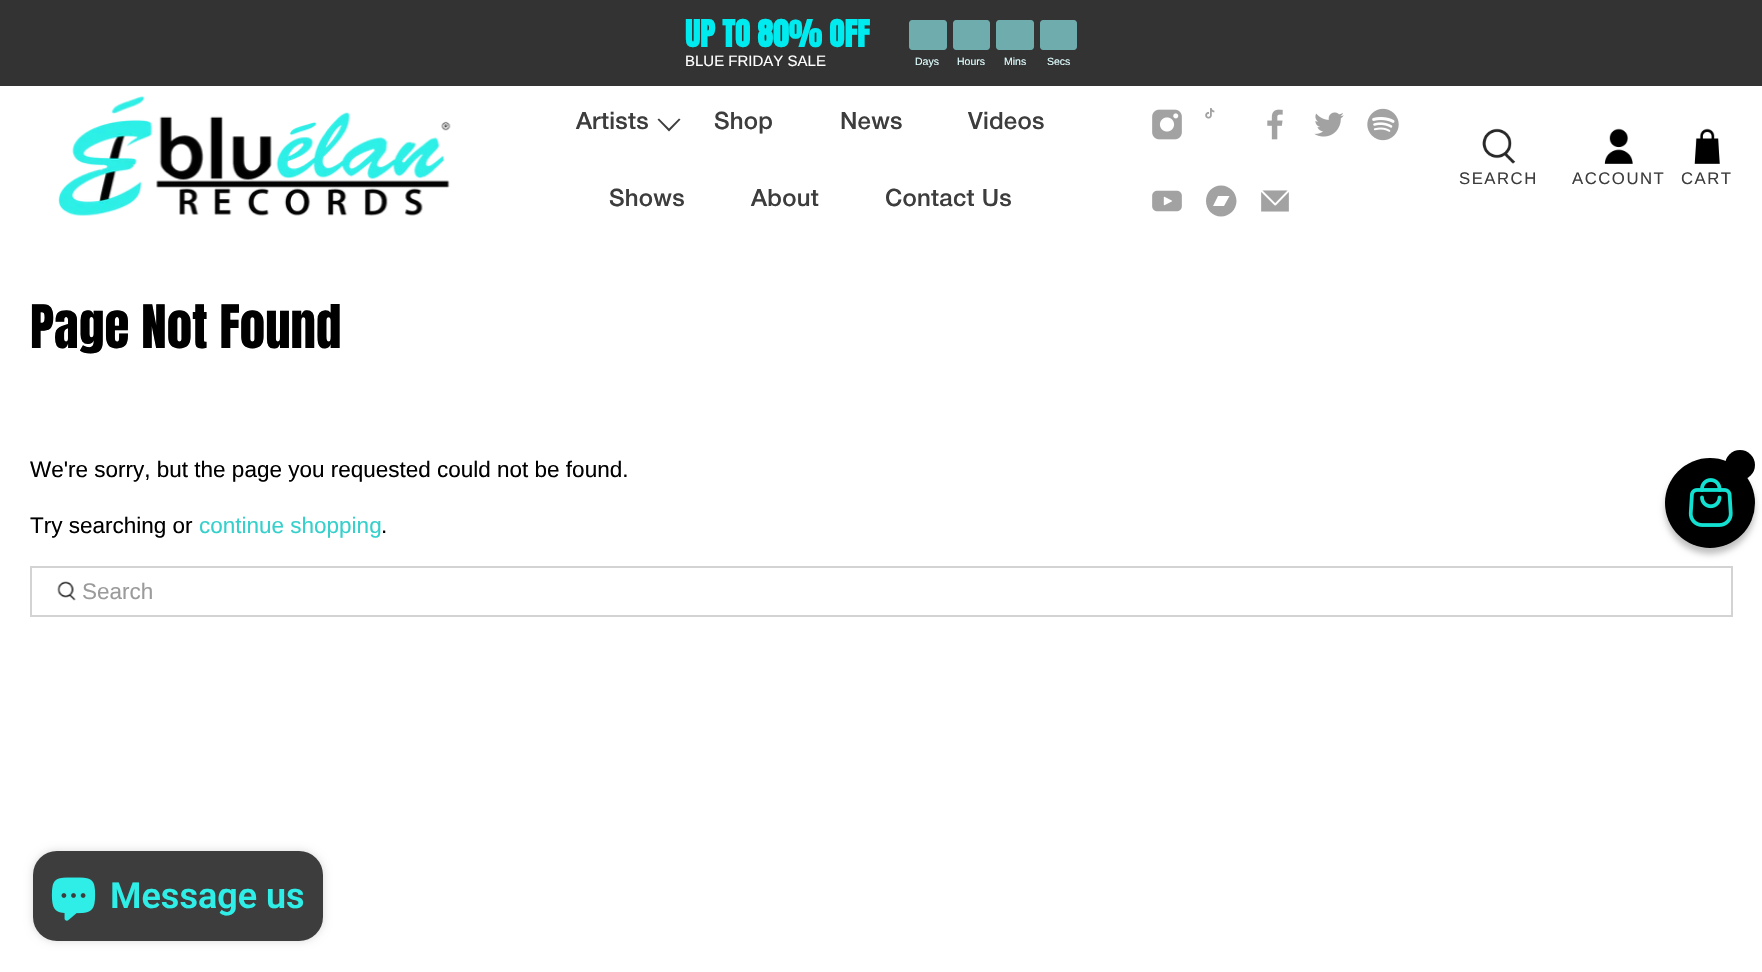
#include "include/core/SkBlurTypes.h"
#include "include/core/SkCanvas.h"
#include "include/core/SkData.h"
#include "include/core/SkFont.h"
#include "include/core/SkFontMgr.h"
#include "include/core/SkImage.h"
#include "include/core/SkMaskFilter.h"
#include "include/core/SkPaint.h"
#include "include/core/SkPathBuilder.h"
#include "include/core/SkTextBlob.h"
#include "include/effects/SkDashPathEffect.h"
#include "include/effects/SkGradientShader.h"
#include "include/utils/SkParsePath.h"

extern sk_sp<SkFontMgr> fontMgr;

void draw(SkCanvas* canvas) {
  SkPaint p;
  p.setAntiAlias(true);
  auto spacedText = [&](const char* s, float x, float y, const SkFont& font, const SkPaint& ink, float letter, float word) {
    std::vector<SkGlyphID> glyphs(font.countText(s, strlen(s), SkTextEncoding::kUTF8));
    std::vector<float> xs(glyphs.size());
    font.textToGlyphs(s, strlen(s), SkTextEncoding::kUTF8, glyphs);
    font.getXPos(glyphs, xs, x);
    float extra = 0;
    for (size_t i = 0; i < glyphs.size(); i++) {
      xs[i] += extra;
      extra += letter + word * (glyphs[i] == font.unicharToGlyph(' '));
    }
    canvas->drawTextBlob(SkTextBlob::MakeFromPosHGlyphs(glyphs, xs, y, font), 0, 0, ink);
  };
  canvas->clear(SK_ColorWHITE);
  p.setColor(SkColorSetRGB(51, 51, 51));
  canvas->drawRect(SkRect::MakeLTRB(0, 0, 1762, 86), p);
  p.setColor(SkColorSetRGB(110, 172, 174));
  canvas->drawPath(SkPathBuilder().moveTo(912, 20).lineTo(944, 20).cubicTo(945.5f, 20, 947, 21.5f, 947, 23).lineTo(947, 35).lineTo(909, 35).lineTo(909, 23).cubicTo(909, 21.5f, 910.5f, 20, 912, 20).close().detach(), p);
  canvas->drawPath(SkPathBuilder().moveTo(909, 35).lineTo(947, 35).lineTo(947, 47).cubicTo(947, 48.5f, 945.5f, 50, 944, 50).lineTo(912, 50).cubicTo(910.5f, 50, 909, 48.5f, 909, 47).close().detach(), p);
  canvas->drawPath(SkPathBuilder().moveTo(956, 20).lineTo(987, 20).cubicTo(988.5f, 20, 990, 21.5f, 990, 23).lineTo(990, 35).lineTo(953, 35).lineTo(953, 23).cubicTo(953, 21.5f, 954.5f, 20, 956, 20).close().detach(), p);
  canvas->drawPath(SkPathBuilder().moveTo(953, 35).lineTo(990, 35).lineTo(990, 47).cubicTo(990, 48.5f, 988.5f, 50, 987, 50).lineTo(956, 50).cubicTo(954.5f, 50, 953, 48.5f, 953, 47).close().detach(), p);
  canvas->drawPath(SkPathBuilder().moveTo(999, 20).lineTo(1031, 20).cubicTo(1032.5f, 20, 1034, 21.5f, 1034, 23).lineTo(1034, 35).lineTo(996, 35).lineTo(996, 23).cubicTo(996, 21.5f, 997.5f, 20, 999, 20).close().detach(), p);
  canvas->drawPath(SkPathBuilder().moveTo(996, 35).lineTo(1034, 35).lineTo(1034, 47).cubicTo(1034, 48.5f, 1032.5f, 50, 1031, 50).lineTo(999, 50).cubicTo(997.5f, 50, 996, 48.5f, 996, 47).close().detach(), p);
  canvas->drawPath(SkPathBuilder().moveTo(1043, 20).lineTo(1074, 20).cubicTo(1075.5f, 20, 1077, 21.5f, 1077, 23).lineTo(1077, 35).lineTo(1040, 35).lineTo(1040, 23).cubicTo(1040, 21.5f, 1041.5f, 20, 1043, 20).close().detach(), p);
  canvas->drawPath(SkPathBuilder().moveTo(1040, 35).lineTo(1077, 35).lineTo(1077, 47).cubicTo(1077, 48.5f, 1075.5f, 50, 1074, 50).lineTo(1043, 50).cubicTo(1041.5f, 50, 1040, 48.5f, 1040, 47).close().detach(), p);
  canvas->drawImageRect(SkImages::DeferredFromEncodedData(SkData::MakeFromFileName("images/1.png")), SkRect::MakeLTRB(58, 96, 451, 216), SkSamplingOptions());
  p.setColor(SkColorSetRGB(61, 61, 61));
  canvas->drawPath(SkPathBuilder().moveTo(669, 131.5f).lineTo(657.5f, 119.5f).lineTo(659, 118.5f).lineTo(669, 128.5f).lineTo(679, 118.5f).lineTo(680.5f, 119.5f).close().detach(), p);
  canvas->drawImageRect(SkImages::DeferredFromEncodedData(SkData::MakeFromFileName("images/2.png")), SkRect::MakeLTRB(1152, 109, 1182, 140), SkSamplingOptions());
  canvas->drawImageRect(SkImages::DeferredFromEncodedData(SkData::MakeFromFileName("images/3.png")), SkRect::MakeLTRB(1205, 108, 1215, 119), SkSamplingOptions());
  canvas->drawImageRect(SkImages::DeferredFromEncodedData(SkData::MakeFromFileName("images/4.png")), SkRect::MakeLTRB(1267, 109, 1283, 140), SkSamplingOptions());
  canvas->drawImageRect(SkImages::DeferredFromEncodedData(SkData::MakeFromFileName("images/5.png")), SkRect::MakeLTRB(1314, 112, 1344, 137), SkSamplingOptions());
  canvas->drawImageRect(SkImages::DeferredFromEncodedData(SkData::MakeFromFileName("images/6.png")), SkRect::MakeLTRB(1367, 108, 1399, 141), SkSamplingOptions());
  canvas->drawImageRect(SkImages::DeferredFromEncodedData(SkData::MakeFromFileName("images/7.png")), SkRect::MakeLTRB(1152, 190, 1182, 212), SkSamplingOptions());
  p.setColor(SkColorSetRGB(162, 162, 162));
  canvas->drawPath(SkPathBuilder().moveTo(1221, 216.5f).cubicTo(1229.5f, 216.5f, 1236.5f, 209.5f, 1236.5f, 201).cubicTo(1236.5f, 192.5f, 1229.5f, 185.5f, 1221, 185.5f).cubicTo(1212.5f, 185.5f, 1206, 192.5f, 1206, 201).cubicTo(1206, 209.5f, 1212.5f, 216.5f, 1221, 216.5f).close().moveTo(1224, 206).lineTo(1213, 206).lineTo(1218, 196).lineTo(1229.5f, 196).close().detach(), p);
  canvas->drawImageRect(SkImages::DeferredFromEncodedData(SkData::MakeFromFileName("images/8.png")), SkRect::MakeLTRB(1261, 190, 1289, 212), SkSamplingOptions());
  canvas->drawImageRect(SkImages::DeferredFromEncodedData(SkData::MakeFromFileName("images/9.png")), SkRect::MakeLTRB(1482, 128, 1516, 164), SkSamplingOptions());
  canvas->drawImageRect(SkImages::DeferredFromEncodedData(SkData::MakeFromFileName("images/10.png")), SkRect::MakeLTRB(1604, 128, 1633, 164), SkSamplingOptions());
  canvas->drawImageRect(SkImages::DeferredFromEncodedData(SkData::MakeFromFileName("images/11.png")), SkRect::MakeLTRB(1694, 128, 1720, 164), SkSamplingOptions());
  p.setStyle(SkPaint::kStroke_Style);
  p.setStrokeWidth(2);
  p.setColor(SkColorSetRGB(211, 211, 211));
  canvas->drawRect(SkRect::MakeLTRB(31, 567, 1732, 616), p);
  canvas->drawImageRect(SkImages::DeferredFromEncodedData(SkData::MakeFromFileName("images/12.png")), SkRect::MakeLTRB(57, 581, 76, 601), SkSamplingOptions());
  p.setStyle(SkPaint::kFill_Style);
  p.setColor(SkColorSetARGB(64, 0, 0, 0));
  p.setMaskFilter(SkMaskFilter::MakeBlur(kNormal_SkBlurStyle, 3));
  canvas->drawRoundRect(SkRect::MakeLTRB(1665, 464, 1755, 554), 45, 45, p);
  p.setMaskFilter(nullptr);
  p.setColor(SK_ColorBLACK);
  canvas->drawCircle(1710, 503, 45, p);
  canvas->drawImageRect(SkImages::DeferredFromEncodedData(SkData::MakeFromFileName("images/13.png")), SkRect::MakeLTRB(1688, 478, 1733, 527), SkSamplingOptions());
  canvas->drawCircle(1740, 465, 15, p);
  p.setColor(SkColorSetARGB(38, 0, 0, 0));
  p.setMaskFilter(SkMaskFilter::MakeBlur(kNormal_SkBlurStyle, 4));
  canvas->drawRoundRect(SkRect::MakeLTRB(33, 851, 323, 941), 24, 24, p);
  p.setMaskFilter(nullptr);
  p.setColor(SkColorSetRGB(61, 61, 61));
  canvas->drawRoundRect(SkRect::MakeLTRB(33, 851, 323, 941), 24, 24, p);
  canvas->drawImageRect(SkImages::DeferredFromEncodedData(SkData::MakeFromFileName("images/14.png")), SkRect::MakeLTRB(51, 877, 96, 921), SkSamplingOptions());
  SkFont font1(fontMgr->matchFamilyStyle("Anton", SkFontStyle::Bold()), 31.5f);
  font1.setSubpixel(true);
  p.setColor(SkColorSetRGB(0, 235, 239));
  canvas->drawString("UP TO 80% OFF", 685, 47, font1, p);
  SkFont font2(fontMgr->matchFamilyStyle("Liberation Sans", SkFontStyle::Normal()), 15);
  font2.setSubpixel(true);
  p.setColor(SK_ColorWHITE);
  canvas->drawString("BLUE FRIDAY SALE", 685, 66, font2, p);
  SkFont font3(fontMgr->matchFamilyStyle("Liberation Sans", SkFontStyle::Normal()), 10.5f);
  font3.setSubpixel(true);
  p.setColor(SkColorSetRGB(224, 254, 255));
  canvas->drawString("Days", 915, 65, font3, p);
  canvas->drawString("Hours", 957, 65, font3, p);
  canvas->drawString("Mins", 1004, 65, font3, p);
  canvas->drawString("Secs", 1047, 65, font3, p);
  SkFont font4(fontMgr->matchFamilyStyle("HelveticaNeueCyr", SkFontStyle(500, SkFontStyle::kNormal_Width, SkFontStyle::kUpright_Slant)), 24);
  font4.setSubpixel(true);
  p.setColor(SkColorSetRGB(61, 61, 61));
  spacedText("Artists", 576, 129, font4, p, 0.25f, 0);
  spacedText("Shop", 714, 129, font4, p, 0.25f, 0);
  spacedText("News", 840, 129, font4, p, 0.25f, 0);
  spacedText("Videos", 968, 129, font4, p, 0.25f, 0);
  spacedText("Shows", 609, 206, font4, p, 0.25f, 0);
  spacedText("About", 751, 206, font4, p, 0.25f, 0);
  spacedText("Contact Us", 885, 206, font4, p, 0.25f, 0);
  SkFont font5(fontMgr->matchFamilyStyle("Liberation Sans", SkFontStyle::Normal()), 16.75f);
  font5.setSubpixel(true);
  spacedText("SEARCH", 1459, 184, font5, p, 1.5f, 0);
  spacedText("ACCOUNT", 1572, 184, font5, p, 1.5f, 0);
  spacedText("CART", 1681, 184, font5, p, 1.5f, 0);
  SkFont font6(fontMgr->matchFamilyStyle("Anton", SkFontStyle::Normal()), 51);
  font6.setSubpixel(true);
  p.setColor(SK_ColorBLACK);
  canvas->drawString("Page Not Found", 30, 348, font6, p);
  SkFont font7(fontMgr->matchFamilyStyle("Liberation Sans", SkFontStyle::Normal()), 22.5f);
  font7.setSubpixel(true);
  canvas->drawString("We're sorry, but the page you requested could not be found.", 30, 477, font7, p);
  canvas->drawString("Try searching or", 30, 533, font7, p);
  p.setColor(SkColorSetRGB(53, 208, 203));
  canvas->drawString("continue shopping", 199, 533, font7, p);
  p.setColor(SK_ColorBLACK);
  canvas->drawString(".", 381, 533, font7, p);
  p.setColor(SkColorSetRGB(155, 155, 155));
  canvas->drawString("Search", 82, 599, font7, p);
  SkFont font8(fontMgr->matchFamilyStyle("Roboto", SkFontStyle(600, SkFontStyle::kNormal_Width, SkFontStyle::kUpright_Slant)), 36);
  font8.setSubpixel(true);
  p.setColor(SkColorSetRGB(46, 238, 231));
  canvas->drawString("Message us", 110, 908, font8, p);
}
